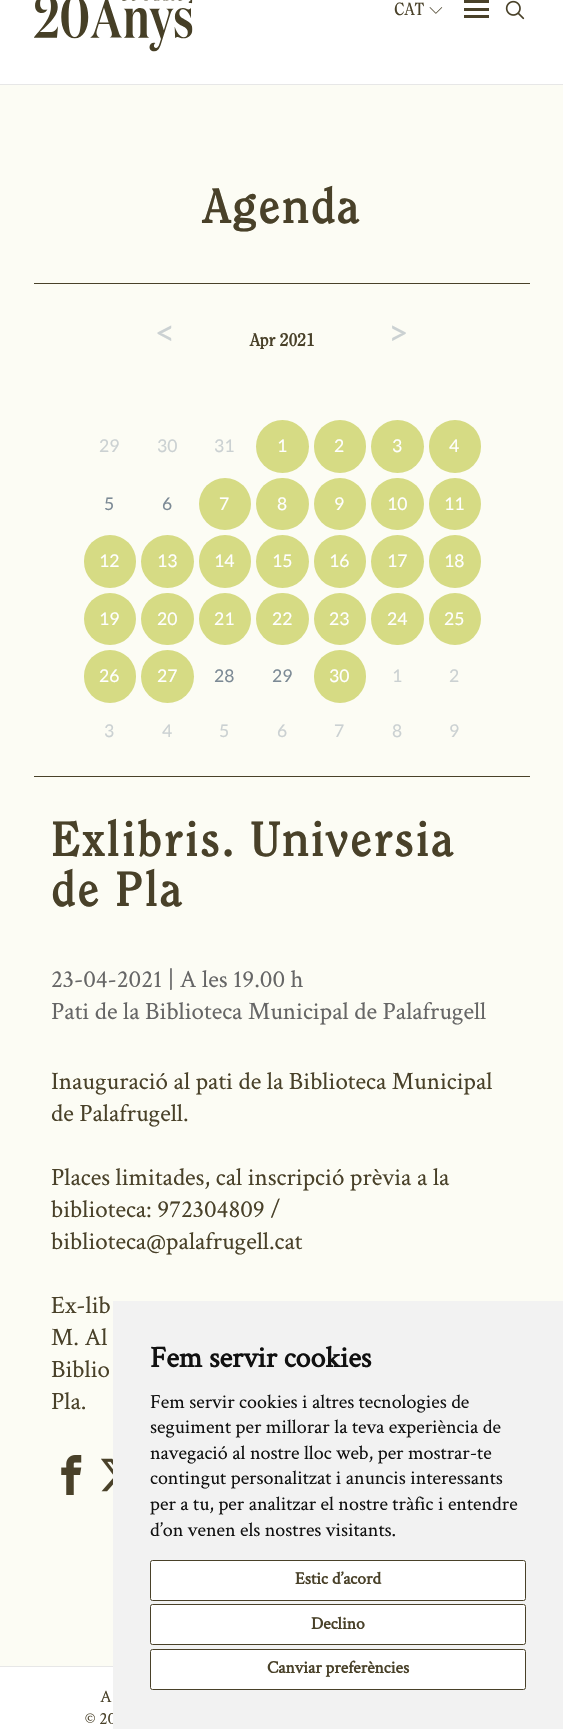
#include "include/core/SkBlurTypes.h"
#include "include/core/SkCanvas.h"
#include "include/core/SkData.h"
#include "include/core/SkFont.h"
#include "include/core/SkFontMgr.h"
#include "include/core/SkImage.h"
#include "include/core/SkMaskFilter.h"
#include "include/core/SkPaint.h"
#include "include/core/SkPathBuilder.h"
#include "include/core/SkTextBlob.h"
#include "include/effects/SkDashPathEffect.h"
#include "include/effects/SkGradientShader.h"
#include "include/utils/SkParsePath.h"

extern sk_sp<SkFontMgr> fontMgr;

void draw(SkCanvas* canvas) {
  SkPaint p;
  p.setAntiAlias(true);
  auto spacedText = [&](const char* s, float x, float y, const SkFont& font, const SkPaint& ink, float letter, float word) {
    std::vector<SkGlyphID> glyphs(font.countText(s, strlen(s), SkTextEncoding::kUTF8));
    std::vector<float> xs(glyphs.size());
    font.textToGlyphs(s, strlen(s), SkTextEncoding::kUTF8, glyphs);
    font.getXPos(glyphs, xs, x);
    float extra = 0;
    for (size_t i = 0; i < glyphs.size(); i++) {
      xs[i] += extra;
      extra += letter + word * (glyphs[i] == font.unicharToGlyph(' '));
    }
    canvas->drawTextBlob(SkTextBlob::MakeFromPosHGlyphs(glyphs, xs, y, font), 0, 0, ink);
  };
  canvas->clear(SK_ColorWHITE);
  p.setColor(SkColorSetRGB(231, 231, 231));
  canvas->drawRect(SkRect::MakeLTRB(0, 84, 563, 85), p);
  canvas->drawImageRect(SkImages::DeferredFromEncodedData(SkData::MakeFromFileName("images/1.png")), SkRect::MakeLTRB(34, 0, 193, 52), SkSamplingOptions());
  canvas->drawImageRect(SkImages::DeferredFromEncodedData(SkData::MakeFromFileName("images/2.png")), SkRect::MakeLTRB(429, 7, 443, 14), SkSamplingOptions());
  p.setColor(SkColorSetRGB(73, 65, 41));
  canvas->drawRect(SkRect::MakeLTRB(464, 0, 489, 3), p);
  canvas->drawRect(SkRect::MakeLTRB(464, 8, 489, 11), p);
  canvas->drawRect(SkRect::MakeLTRB(464, 15, 489, 18), p);
  canvas->drawImageRect(SkImages::DeferredFromEncodedData(SkData::MakeFromFileName("images/3.png")), SkRect::MakeLTRB(505, 0, 525, 20), SkSamplingOptions());
  p.setColor(SkColorSetRGB(252, 252, 244));
  canvas->drawRect(SkRect::MakeLTRB(0, 85, 563, 1666), p);
  p.setColor(SkColorSetRGB(73, 65, 41));
  canvas->drawRect(SkRect::MakeLTRB(34, 283, 530, 284), p);
  canvas->drawRect(SkRect::MakeLTRB(34, 776, 530, 777), p);
  p.setColor(SkColorSetRGB(214, 219, 132));
  canvas->drawCircle(282.5f, 446.5f, 26.5f, p);
  canvas->drawRoundRect(SkRect::MakeLTRB(314, 420, 366, 473), 26, 26, p);
  canvas->drawCircle(397.5f, 446.5f, 26.5f, p);
  canvas->drawRoundRect(SkRect::MakeLTRB(429, 420, 481, 473), 26, 26, p);
  canvas->drawCircle(225, 504, 26, p);
  canvas->drawRoundRect(SkRect::MakeLTRB(256, 478, 309, 530), 26, 26, p);
  canvas->drawCircle(340, 504, 26, p);
  canvas->drawRoundRect(SkRect::MakeLTRB(371, 478, 424, 530), 26, 26, p);
  canvas->drawCircle(455, 504, 26, p);
  canvas->drawRoundRect(SkRect::MakeLTRB(84, 535, 136, 588), 26, 26, p);
  canvas->drawCircle(167.5f, 561.5f, 26.5f, p);
  canvas->drawRoundRect(SkRect::MakeLTRB(199, 535, 251, 588), 26, 26, p);
  canvas->drawCircle(282.5f, 561.5f, 26.5f, p);
  canvas->drawRoundRect(SkRect::MakeLTRB(314, 535, 366, 588), 26, 26, p);
  canvas->drawCircle(397.5f, 561.5f, 26.5f, p);
  canvas->drawRoundRect(SkRect::MakeLTRB(429, 535, 481, 588), 26, 26, p);
  canvas->drawCircle(110, 619, 26, p);
  canvas->drawRoundRect(SkRect::MakeLTRB(141, 593, 194, 645), 26, 26, p);
  canvas->drawCircle(225, 619, 26, p);
  canvas->drawRoundRect(SkRect::MakeLTRB(256, 593, 309, 645), 26, 26, p);
  canvas->drawCircle(340, 619, 26, p);
  canvas->drawRoundRect(SkRect::MakeLTRB(371, 593, 424, 645), 26, 26, p);
  canvas->drawCircle(455, 619, 26, p);
  canvas->drawRoundRect(SkRect::MakeLTRB(84, 650, 136, 703), 26, 26, p);
  canvas->drawCircle(167.5f, 676.5f, 26.5f, p);
  canvas->drawRoundRect(SkRect::MakeLTRB(314, 650, 366, 703), 26, 26, p);
  canvas->drawImageRect(SkImages::DeferredFromEncodedData(SkData::MakeFromFileName("images/4.png")), SkRect::MakeLTRB(61, 1455, 82, 1495), SkSamplingOptions());
  canvas->drawImageRect(SkImages::DeferredFromEncodedData(SkData::MakeFromFileName("images/5.png")), SkRect::MakeLTRB(101, 1458, 113, 1492), SkSamplingOptions());
  p.setColor(SkColorSetRGB(231, 231, 231));
  canvas->drawRect(SkRect::MakeLTRB(0, 1666, 113, 1667), p);
  SkFont font1(fontMgr->matchFamilyStyle("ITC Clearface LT", SkFontStyle::Normal()), 17.5f);
  font1.setSubpixel(true);
  p.setColor(SkColorSetRGB(73, 65, 41));
  canvas->drawString("CAT", 394, 15, font1, p);
  SkFont font2(fontMgr->matchFamilyStyle("ITC Clearface LT", SkFontStyle::Bold()), 47.5f);
  font2.setSubpixel(true);
  spacedText("Agenda", 203, 223, font2, p, 2.5f, 0);
  SkFont font3(fontMgr->matchFamilyStyle("Lato", SkFontStyle::Normal()), 35);
  font3.setSubpixel(true);
  p.setColor(SkColorSetRGB(203, 209, 210));
  canvas->drawString("<", 155, 345, font3, p);
  SkFont font4(fontMgr->matchFamilyStyle("ITC Clearface LT", SkFontStyle::Bold()), 17.5f);
  font4.setSubpixel(true);
  p.setColor(SkColorSetRGB(73, 65, 41));
  canvas->drawString("Apr 2021", 250, 346, font4, p);
  p.setColor(SkColorSetRGB(203, 209, 210));
  canvas->drawString(">", 388, 345, font3, p);
  SkFont font5(fontMgr->matchFamilyStyle("Lato", SkFontStyle::Normal()), 17.5f);
  font5.setSubpixel(true);
  canvas->drawString("29", 99, 452, font5, p);
  canvas->drawString("30", 157, 452, font5, p);
  canvas->drawString("31", 214, 452, font5, p);
  p.setColor(SK_ColorWHITE);
  canvas->drawString("1", 277, 452, font5, p);
  canvas->drawString("2", 334, 452, font5, p);
  canvas->drawString("3", 392, 452, font5, p);
  canvas->drawString("4", 449, 452, font5, p);
  p.setColor(SkColorSetRGB(124, 138, 149));
  canvas->drawString("5", 104, 510, font5, p);
  canvas->drawString("6", 162, 510, font5, p);
  p.setColor(SK_ColorWHITE);
  canvas->drawString("7", 219, 510, font5, p);
  canvas->drawString("8", 277, 510, font5, p);
  canvas->drawString("9", 334, 510, font5, p);
  canvas->drawString("10", 387, 510, font5, p);
  canvas->drawString("11", 444, 510, font5, p);
  canvas->drawString("12", 99, 567, font5, p);
  canvas->drawString("13", 157, 567, font5, p);
  canvas->drawString("14", 214, 567, font5, p);
  canvas->drawString("15", 272, 567, font5, p);
  canvas->drawString("16", 329, 567, font5, p);
  canvas->drawString("17", 387, 567, font5, p);
  canvas->drawString("18", 444, 567, font5, p);
  canvas->drawString("19", 99, 625, font5, p);
  canvas->drawString("20", 157, 625, font5, p);
  canvas->drawString("21", 214, 625, font5, p);
  canvas->drawString("22", 272, 625, font5, p);
  canvas->drawString("23", 329, 625, font5, p);
  canvas->drawString("24", 387, 625, font5, p);
  canvas->drawString("25", 444, 625, font5, p);
  canvas->drawString("26", 99, 682, font5, p);
  canvas->drawString("27", 157, 682, font5, p);
  p.setColor(SkColorSetRGB(124, 138, 149));
  canvas->drawString("28", 214, 682, font5, p);
  canvas->drawString("29", 272, 682, font5, p);
  p.setColor(SK_ColorWHITE);
  canvas->drawString("30", 329, 682, font5, p);
  p.setColor(SkColorSetRGB(203, 209, 210));
  canvas->drawString("1", 392, 682, font5, p);
  canvas->drawString("2", 449, 682, font5, p);
  canvas->drawString("3", 104, 737, font5, p);
  canvas->drawString("4", 162, 737, font5, p);
  canvas->drawString("5", 219, 737, font5, p);
  canvas->drawString("6", 277, 737, font5, p);
  canvas->drawString("7", 334, 737, font5, p);
  canvas->drawString("8", 392, 737, font5, p);
  canvas->drawString("9", 449, 737, font5, p);
  p.setColor(SkColorSetRGB(73, 65, 41));
  spacedText("Exlibris. Universia", 51, 856, font2, p, 2.5f, 0);
  spacedText("de Pla", 51, 906, font2, p, 2.5f, 0);
  SkFont font6(fontMgr->matchFamilyStyle("Crimson Text", SkFontStyle::Normal()), 25);
  font6.setSubpixel(true);
  p.setColor(SkColorSetRGB(102, 102, 102));
  canvas->drawString("23-04-2021 | A les 19.00 h", 51, 987, font6, p);
  canvas->drawString("Pati de la Biblioteca Municipal de Palafrugell", 51, 1019, font6, p);
  p.setColor(SkColorSetRGB(73, 65, 41));
  canvas->drawString("Inauguració al pati de la Biblioteca Municipal", 51, 1089, font6, p);
  canvas->drawString("de Palafrugell.", 51, 1121, font6, p);
  canvas->drawString("Places limitades, cal inscripció prèvia a la", 51, 1185, font6, p);
  canvas->drawString("biblioteca: 972304809 /", 51, 1217, font6, p);
  canvas->drawString("biblioteca@palafrugell.cat", 51, 1249, font6, p);
  canvas->drawString("Ex-lib", 51, 1313, font6, p);
  canvas->drawString("M. Al", 51, 1345, font6, p);
  canvas->drawString("Biblio", 51, 1377, font6, p);
  canvas->drawString("Pla.", 51, 1409, font6, p);
  SkFont font7(fontMgr->matchFamilyStyle("Crimson Text", SkFontStyle::Normal()), 17.5f);
  font7.setSubpixel(true);
  canvas->drawString("A", 100, 1702, font7, p);
  canvas->drawString("© 20", 85, 1724, font7, p);
  p.setColor(SkColorSetRGB(242, 242, 242));
  canvas->drawRect(SkRect::MakeLTRB(113, 1301, 563, 1729), p);
  p.setColor(SK_ColorWHITE);
  canvas->drawRoundRect(SkRect::MakeLTRB(150.5f, 1649.5f, 525.5f, 1689.5f), 2, 2, p);
  p.setStyle(SkPaint::kStroke_Style);
  p.setStrokeWidth(1);
  p.setColor(SkColorSetRGB(73, 65, 41));
  canvas->drawRoundRect(SkRect::MakeLTRB(150.5f, 1649.5f, 525.5f, 1689.5f), 2, 2, p);
  SkFont font8(fontMgr->matchFamilyStyle("Crimson Text", SkFontStyle::Bold()), 17.5f);
  font8.setSubpixel(true);
  p.setStyle(SkPaint::kFill_Style);
  canvas->drawString("Canviar preferències", 267, 1673, font8, p);
  p.setColor(SK_ColorWHITE);
  canvas->drawRoundRect(SkRect::MakeLTRB(150.5f, 1604.5f, 525.5f, 1644.5f), 2, 2, p);
  p.setStyle(SkPaint::kStroke_Style);
  p.setColor(SkColorSetRGB(73, 65, 41));
  canvas->drawRoundRect(SkRect::MakeLTRB(150.5f, 1604.5f, 525.5f, 1644.5f), 2, 2, p);
  p.setStyle(SkPaint::kFill_Style);
  canvas->drawString("Declino", 311, 1629, font8, p);
  p.setColor(SK_ColorWHITE);
  canvas->drawRoundRect(SkRect::MakeLTRB(150.5f, 1560.5f, 525.5f, 1600.5f), 2, 2, p);
  p.setStyle(SkPaint::kStroke_Style);
  p.setColor(SkColorSetRGB(73, 65, 41));
  canvas->drawRoundRect(SkRect::MakeLTRB(150.5f, 1560.5f, 525.5f, 1600.5f), 2, 2, p);
  p.setStyle(SkPaint::kFill_Style);
  canvas->drawString("Estic d’acord", 295, 1584, font8, p);
  SkFont font9(fontMgr->matchFamilyStyle("Crimson Text", SkFontStyle::Normal()), 20);
  font9.setSubpixel(true);
  p.setColor(SkColorSetRGB(17, 17, 17));
  canvas->drawString("d’on venen els nostres visitants.", 150, 1536, font9, p);
  canvas->drawString("per a tu, per analitzar el nostre tràfic i entendre", 150, 1510, font9, p);
  canvas->drawString("contingut personalitzat i anuncis interessants", 150, 1484, font9, p);
  canvas->drawString("navegació al nostre lloc web, per mostrar-te", 150, 1459, font9, p);
  canvas->drawString("seguiment per millorar la teva experiència de", 150, 1433, font9, p);
  canvas->drawString("Fem servir cookies i altres tecnologies de", 150, 1408, font9, p);
  SkFont font10(fontMgr->matchFamilyStyle("Crimson Text", SkFontStyle::Bold()), 30);
  font10.setSubpixel(true);
  canvas->drawString("Fem servir cookies", 150, 1367, font10, p);
}
